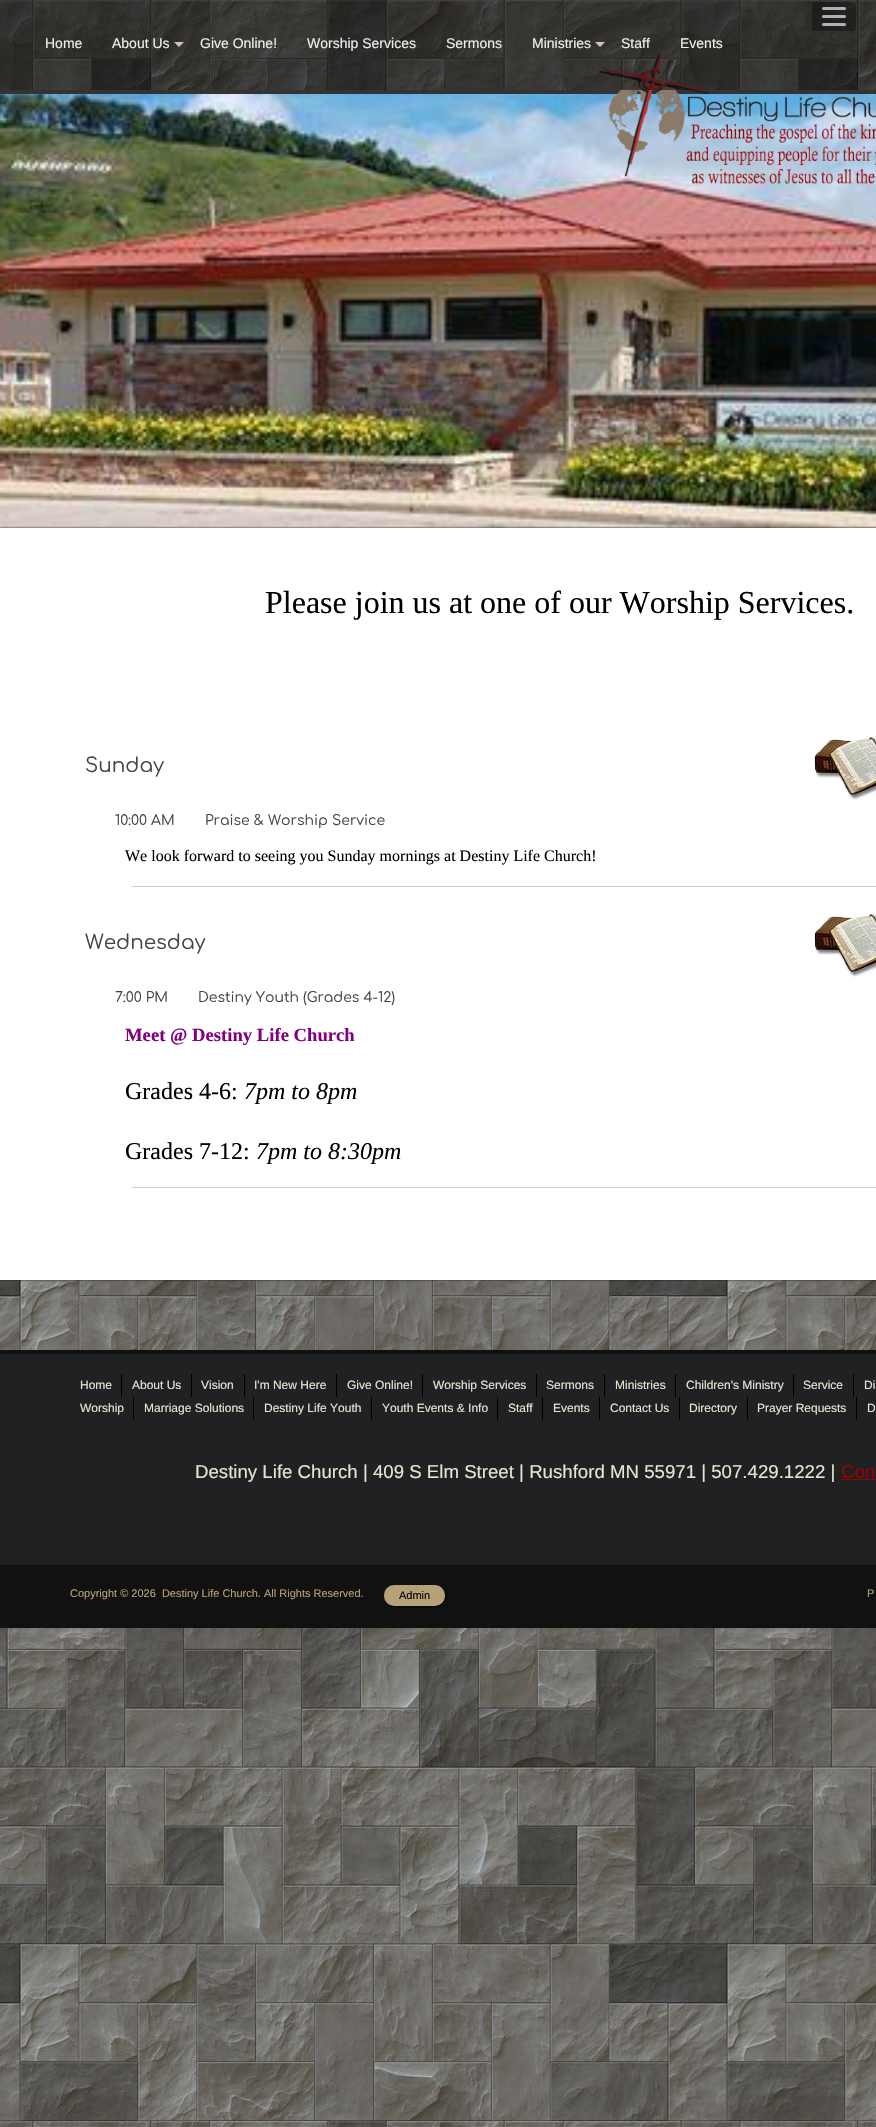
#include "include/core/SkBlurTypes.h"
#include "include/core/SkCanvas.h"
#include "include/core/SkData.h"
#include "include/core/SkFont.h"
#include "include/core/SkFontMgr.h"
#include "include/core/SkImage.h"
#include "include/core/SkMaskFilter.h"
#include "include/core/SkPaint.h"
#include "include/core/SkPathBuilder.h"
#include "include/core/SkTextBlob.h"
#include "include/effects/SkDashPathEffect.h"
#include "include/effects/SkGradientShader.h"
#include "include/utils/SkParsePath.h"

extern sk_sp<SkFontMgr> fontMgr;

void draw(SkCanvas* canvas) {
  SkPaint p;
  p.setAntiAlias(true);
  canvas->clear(SK_ColorWHITE);
  canvas->drawImageRect(SkImages::DeferredFromEncodedData(SkData::MakeFromFileName("images/1.png")), SkRect::MakeLTRB(0, 0, 876, 2127), SkSamplingOptions());
  p.setColor(SkColorSetRGB(51, 51, 51));
  canvas->drawRect(SkRect::MakeLTRB(0, 90, 876, 94), p);
  canvas->drawImageRect(SkImages::DeferredFromEncodedData(SkData::MakeFromFileName("images/3.png")), SkRect::MakeLTRB(0, 94, 876, 528), SkSamplingOptions());
  canvas->drawImageRect(SkImages::DeferredFromEncodedData(SkData::MakeFromFileName("images/2.png")), SkRect::MakeLTRB(598, 54, 876, 184), SkSamplingOptions());
  p.setColor(SkColorSetARGB(128, 0, 0, 0));
  canvas->drawRect(SkRect::MakeLTRB(0, 0, 876, 90), p);
  p.setColor(SkColorSetRGB(205, 198, 194));
  canvas->drawPath(SkPathBuilder().moveTo(174, 42).lineTo(184, 42).lineTo(179, 47).close().detach(), p);
  canvas->drawPath(SkPathBuilder().moveTo(595, 42).lineTo(605, 42).lineTo(600, 47).close().detach(), p);
  p.setColor(SkColorSetARGB(89, 0, 0, 0));
  canvas->drawRoundRect(SkRect::MakeLTRB(812, 2, 856, 31), 3, 3, p);
  p.setColor(SkColorSetARGB(179, 238, 238, 238));
  canvas->drawRoundRect(SkRect::MakeLTRB(822, 7, 846, 10), 1.5f, 1.5f, p);
  canvas->drawRoundRect(SkRect::MakeLTRB(822, 15, 846, 18), 1.5f, 1.5f, p);
  canvas->drawRoundRect(SkRect::MakeLTRB(822, 23, 846, 26), 1.5f, 1.5f, p);
  p.setColor(SkColorSetRGB(17, 17, 17));
  p.setMaskFilter(SkMaskFilter::MakeBlur(kNormal_SkBlurStyle, 1));
  canvas->drawRect(SkRect::MakeLTRB(0, 528, 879, 1280), p);
  p.setMaskFilter(nullptr);
  p.setColor(SK_ColorWHITE);
  canvas->drawRect(SkRect::MakeLTRB(0, 528, 876, 1280), p);
  canvas->drawImageRect(SkImages::DeferredFromEncodedData(SkData::MakeFromFileName("images/4.png")), SkRect::MakeLTRB(814, 737, 876, 800), SkSamplingOptions());
  p.setColor(SkColorSetRGB(204, 204, 204));
  canvas->drawRect(SkRect::MakeLTRB(132, 886, 876, 887), p);
  canvas->drawImageRect(SkImages::DeferredFromEncodedData(SkData::MakeFromFileName("images/4.png")), SkRect::MakeLTRB(814, 914, 876, 977), SkSamplingOptions());
  canvas->drawRect(SkRect::MakeLTRB(132, 1187, 876, 1188), p);
  p.setColor(SkColorSetRGB(32, 33, 34));
  canvas->drawRect(SkRect::MakeLTRB(0, 1354, 876, 1565), p);
  p.setColor(SkColorSetRGB(17, 17, 17));
  canvas->drawRect(SkRect::MakeLTRB(0, 1350, 876, 1354), p);
  p.setColor(SK_ColorBLACK);
  canvas->drawRect(SkRect::MakeLTRB(793, 1374, 794, 1397), p);
  canvas->drawRect(SkRect::MakeLTRB(853, 1374, 854, 1397), p);
  canvas->drawRect(SkRect::MakeLTRB(133, 1397, 134, 1420), p);
  canvas->drawRect(SkRect::MakeLTRB(253, 1397, 254, 1420), p);
  canvas->drawRect(SkRect::MakeLTRB(371, 1397, 372, 1420), p);
  canvas->drawRect(SkRect::MakeLTRB(497, 1397, 498, 1420), p);
  canvas->drawRect(SkRect::MakeLTRB(675, 1374, 676, 1397), p);
  canvas->drawRect(SkRect::MakeLTRB(121, 1374, 122, 1397), p);
  canvas->drawRect(SkRect::MakeLTRB(191, 1374, 192, 1397), p);
  canvas->drawRect(SkRect::MakeLTRB(244, 1374, 245, 1397), p);
  canvas->drawRect(SkRect::MakeLTRB(336, 1374, 337, 1397), p);
  canvas->drawRect(SkRect::MakeLTRB(422, 1374, 423, 1397), p);
  canvas->drawRect(SkRect::MakeLTRB(536, 1374, 537, 1397), p);
  canvas->drawRect(SkRect::MakeLTRB(604, 1374, 605, 1397), p);
  canvas->drawRect(SkRect::MakeLTRB(542, 1397, 543, 1420), p);
  canvas->drawRect(SkRect::MakeLTRB(599, 1397, 600, 1420), p);
  canvas->drawRect(SkRect::MakeLTRB(679, 1397, 680, 1420), p);
  canvas->drawRect(SkRect::MakeLTRB(747, 1397, 748, 1420), p);
  canvas->drawRect(SkRect::MakeLTRB(856, 1397, 857, 1420), p);
  p.setColor(SkColorSetRGB(153, 0, 0));
  canvas->drawRect(SkRect::MakeLTRB(841, 1479, 876, 1480), p);
  p.setColor(SkColorSetRGB(17, 17, 17));
  canvas->drawRect(SkRect::MakeLTRB(0, 1565, 876, 1628), p);
  p.setColor(SK_ColorBLACK);
  p.setMaskFilter(SkMaskFilter::MakeBlur(kNormal_SkBlurStyle, 1.5f));
  canvas->drawRoundRect(SkRect::MakeLTRB(385, 1586, 446, 1607), 10, 10, p);
  p.setMaskFilter(nullptr);
  p.setColor(SkColorSetRGB(183, 161, 120));
  canvas->drawRoundRect(SkRect::MakeLTRB(384, 1585, 445, 1606), 10, 10, p);
  SkFont font1(fontMgr->matchFamilyStyle("Liberation Sans", SkFontStyle::Normal()), 14);
  font1.setSubpixel(true);
  p.setColor(SkColorSetRGB(238, 238, 238));
  canvas->drawString("Home", 45, 48, font1, p);
  canvas->drawString("About Us", 112, 48, font1, p);
  canvas->drawString("Give Online!", 200, 48, font1, p);
  canvas->drawString("Worship Services", 307, 48, font1, p);
  canvas->drawString("Sermons", 446, 48, font1, p);
  canvas->drawString("Ministries", 532, 48, font1, p);
  canvas->drawString("Staff", 621, 48, font1, p);
  canvas->drawString("Events", 680, 48, font1, p);
  SkFont font2(fontMgr->matchFamilyStyle("Liberation Serif", SkFontStyle::Normal()), 32);
  font2.setSubpixel(true);
  p.setColor(SK_ColorBLACK);
  canvas->drawString("Please join us at one of our Worship Services.", 265, 613, font2, p);
  SkFont font3(fontMgr->matchFamilyStyle("Comfortaa", SkFontStyle::Normal()), 20);
  font3.setSubpixel(true);
  p.setColor(SkColorSetRGB(68, 68, 68));
  canvas->drawString("Sunday", 85, 772, font3, p);
  SkFont font4(fontMgr->matchFamilyStyle("Comfortaa", SkFontStyle::Normal()), 14);
  font4.setSubpixel(true);
  canvas->drawString("10:00 AM", 115, 825, font4, p);
  canvas->drawString("Praise & Worship Service", 205, 825, font4, p);
  SkFont font5(fontMgr->matchFamilyStyle("Liberation Serif", SkFontStyle::Normal()), 16);
  font5.setSubpixel(true);
  p.setColor(SK_ColorBLACK);
  canvas->drawString("We look forward to seeing you Sunday mornings at Destiny Life Church!", 125, 861, font5, p);
  p.setColor(SkColorSetRGB(68, 68, 68));
  canvas->drawString("Wednesday", 85, 949, font3, p);
  canvas->drawString("7:00 PM", 115, 1002, font4, p);
  canvas->drawString("Destiny Youth (Grades 4-12)", 198, 1002, font4, p);
  SkFont font6(fontMgr->matchFamilyStyle("Liberation Serif", SkFontStyle::Bold()), 18.65f);
  font6.setSubpixel(true);
  p.setColor(SkColorSetRGB(128, 0, 128));
  canvas->drawString("Meet @ Destiny Life Church", 125, 1041, font6, p);
  SkFont font7(fontMgr->matchFamilyStyle("Liberation Serif", SkFontStyle::Normal()), 24);
  font7.setSubpixel(true);
  p.setColor(SK_ColorBLACK);
  canvas->drawString("Grades 4-6:", 125, 1099, font7, p);
  SkFont font8(fontMgr->matchFamilyStyle("Liberation Serif", SkFontStyle::Italic()), 24);
  font8.setSubpixel(true);
  canvas->drawString("7pm to 8pm", 244, 1099, font8, p);
  canvas->drawString("Grades 7-12:", 125, 1159, font7, p);
  canvas->drawString("7pm to 8:30pm", 256, 1159, font8, p);
  SkFont font9(fontMgr->matchFamilyStyle("Liberation Sans", SkFontStyle::Normal()), 12);
  font9.setSubpixel(true);
  p.setColor(SkColorSetRGB(232, 228, 211));
  canvas->drawString("Children's Ministry", 686, 1389, font9, p);
  canvas->drawString("Service", 803, 1389, font9, p);
  canvas->drawString("Di", 864, 1389, font9, p);
  canvas->drawString("Worship", 80, 1412, font9, p);
  canvas->drawString("Marriage Solutions", 144, 1412, font9, p);
  canvas->drawString("Destiny Life Youth", 264, 1412, font9, p);
  canvas->drawString("Youth Events & Info", 382, 1412, font9, p);
  canvas->drawString("Ministries", 615, 1389, font9, p);
  canvas->drawString("Home", 80, 1389, font9, p);
  canvas->drawString("About Us", 132, 1389, font9, p);
  canvas->drawString("Vision", 201, 1389, font9, p);
  canvas->drawString("I'm New Here", 254, 1389, font9, p);
  canvas->drawString("Give Online!", 347, 1389, font9, p);
  canvas->drawString("Worship Services", 433, 1389, font9, p);
  canvas->drawString("Sermons", 546, 1389, font9, p);
  canvas->drawString("Staff", 508, 1412, font9, p);
  canvas->drawString("Events", 553, 1412, font9, p);
  canvas->drawString("Contact Us", 610, 1412, font9, p);
  canvas->drawString("Directory", 689, 1412, font9, p);
  canvas->drawString("Prayer Requests", 757, 1412, font9, p);
  canvas->drawString("D", 867, 1412, font9, p);
  SkFont font10(fontMgr->matchFamilyStyle("Liberation Sans", SkFontStyle::Normal()), 18.65f);
  font10.setSubpixel(true);
  canvas->drawString("Destiny Life Church | 409 S Elm Street | Rushford MN 55971 | 507.429.1222 |", 195, 1478, font10, p);
  p.setColor(SkColorSetRGB(153, 0, 0));
  canvas->drawString("Con", 841, 1478, font10, p);
  SkFont font11(fontMgr->matchFamilyStyle("Liberation Sans", SkFontStyle::Normal()), 11);
  font11.setSubpixel(true);
  p.setColor(SkColorSetRGB(183, 161, 120));
  canvas->drawString("Copyright © 2026  Destiny Life Church. All Rights Reserved.", 70, 1597, font11, p);
  p.setColor(SK_ColorBLACK);
  canvas->drawString("Admin", 399, 1599, font11, p);
  p.setColor(SkColorSetRGB(183, 161, 120));
  canvas->drawString("P", 867, 1597, font11, p);
}
